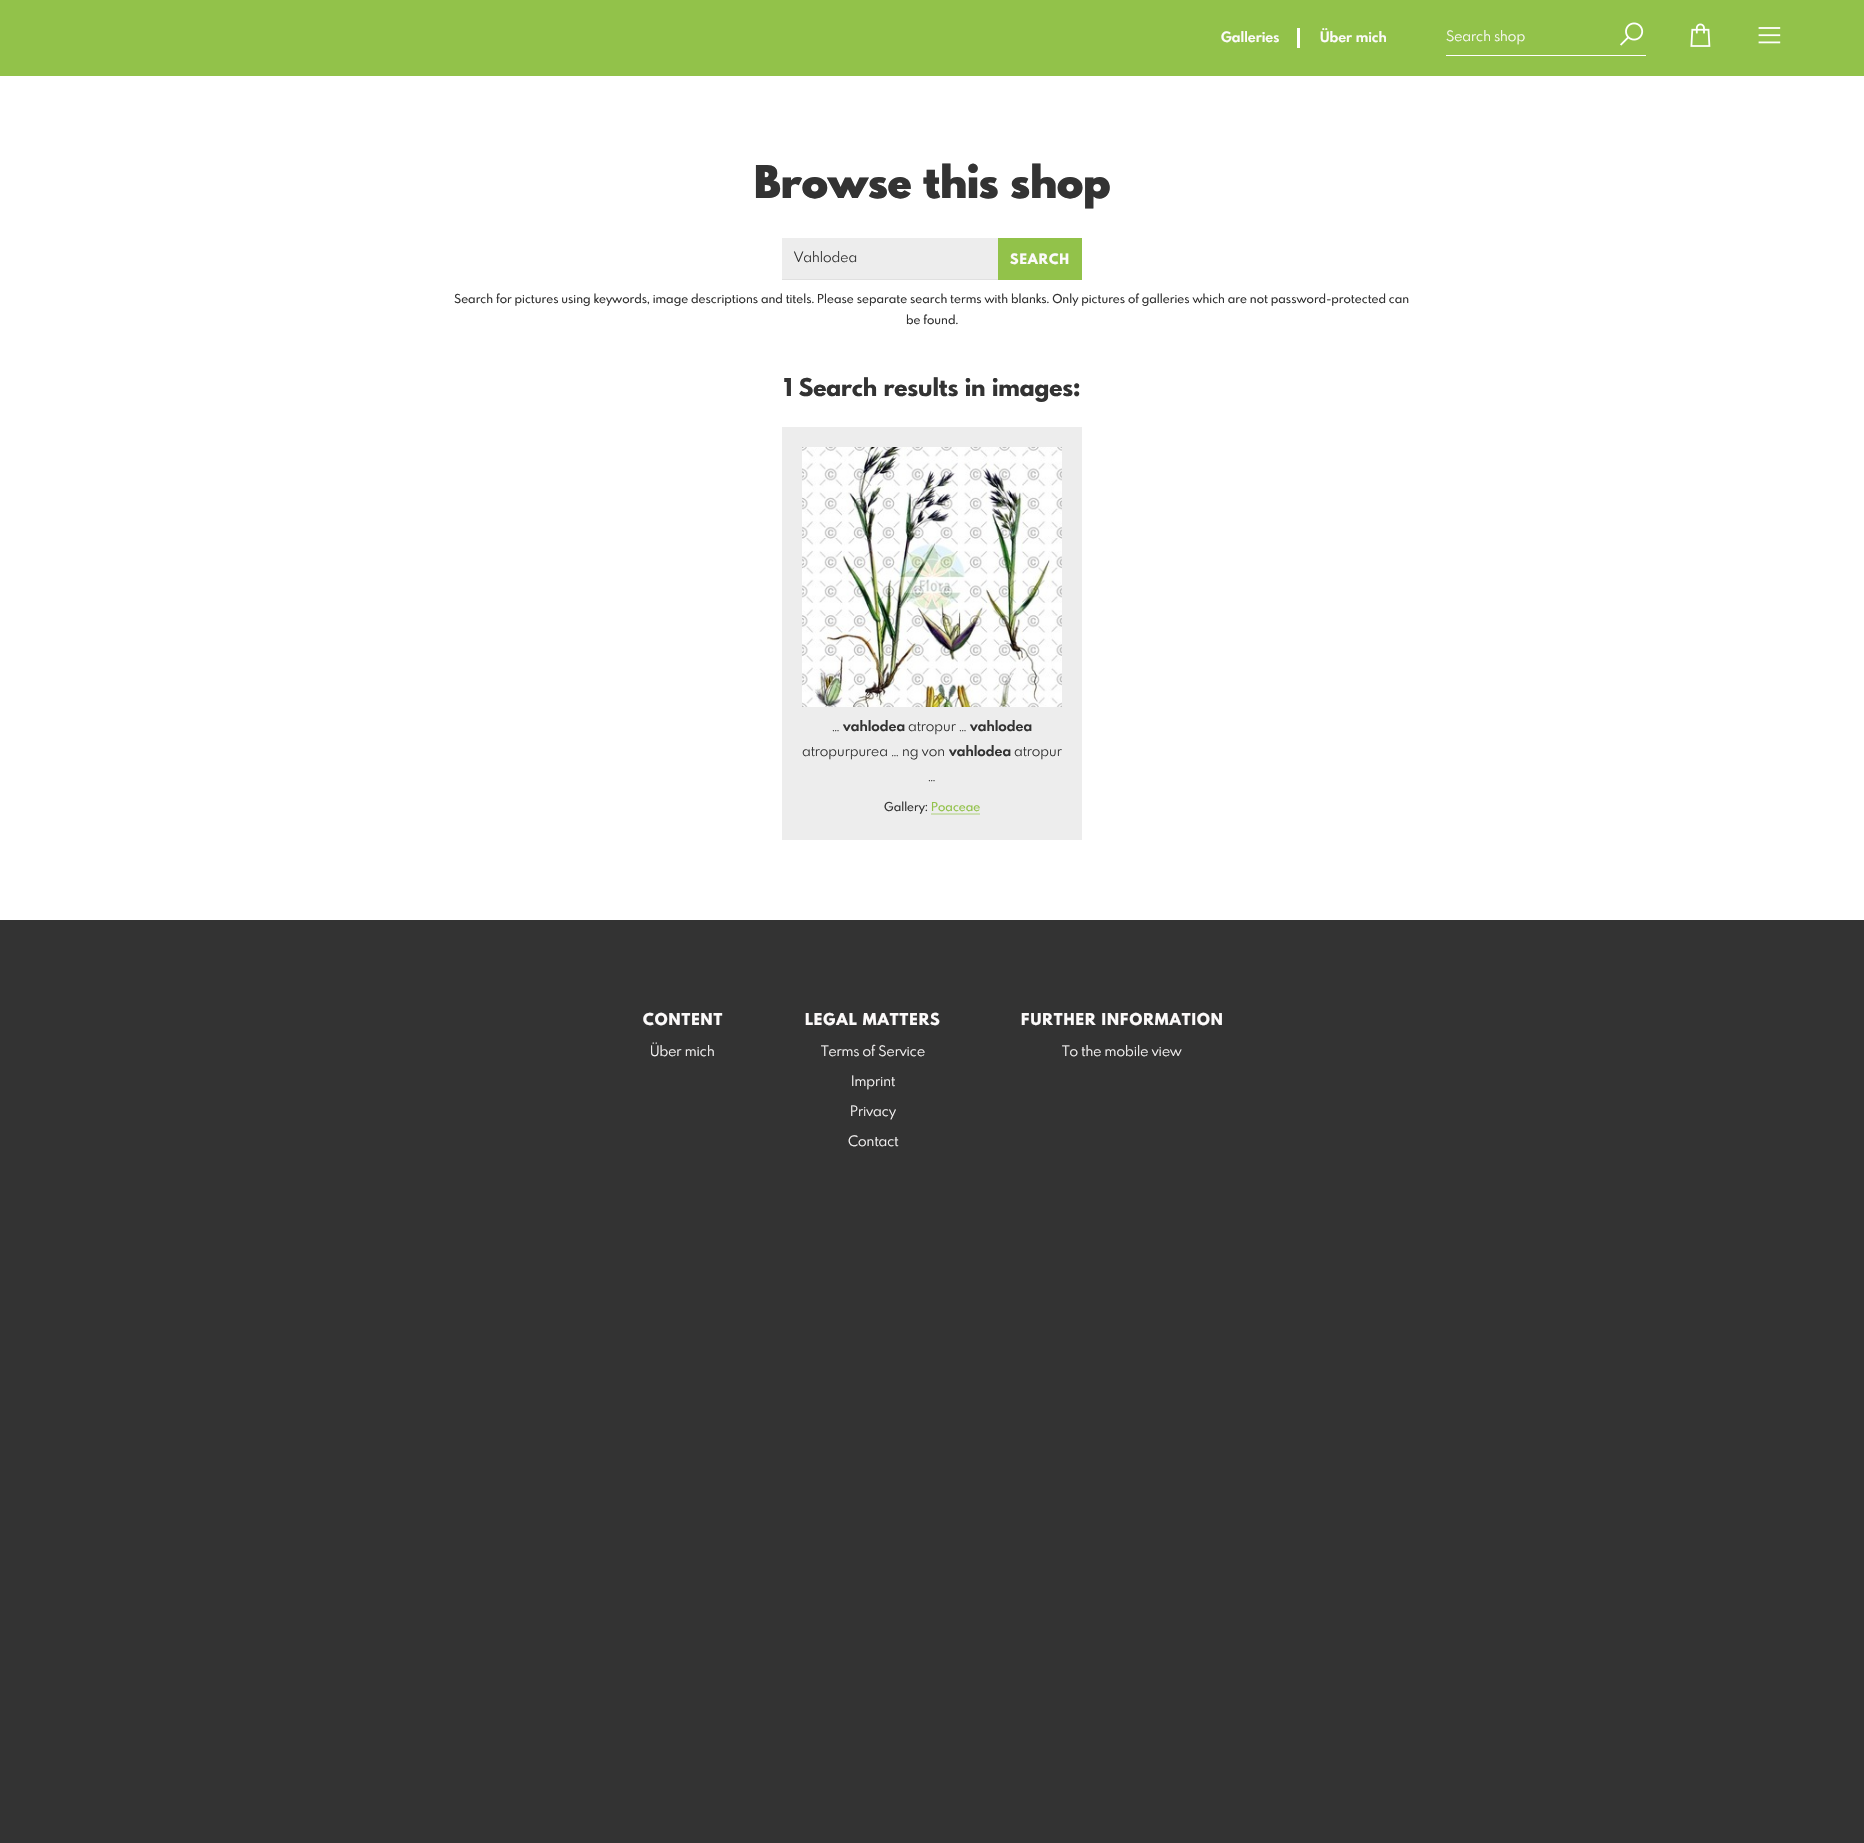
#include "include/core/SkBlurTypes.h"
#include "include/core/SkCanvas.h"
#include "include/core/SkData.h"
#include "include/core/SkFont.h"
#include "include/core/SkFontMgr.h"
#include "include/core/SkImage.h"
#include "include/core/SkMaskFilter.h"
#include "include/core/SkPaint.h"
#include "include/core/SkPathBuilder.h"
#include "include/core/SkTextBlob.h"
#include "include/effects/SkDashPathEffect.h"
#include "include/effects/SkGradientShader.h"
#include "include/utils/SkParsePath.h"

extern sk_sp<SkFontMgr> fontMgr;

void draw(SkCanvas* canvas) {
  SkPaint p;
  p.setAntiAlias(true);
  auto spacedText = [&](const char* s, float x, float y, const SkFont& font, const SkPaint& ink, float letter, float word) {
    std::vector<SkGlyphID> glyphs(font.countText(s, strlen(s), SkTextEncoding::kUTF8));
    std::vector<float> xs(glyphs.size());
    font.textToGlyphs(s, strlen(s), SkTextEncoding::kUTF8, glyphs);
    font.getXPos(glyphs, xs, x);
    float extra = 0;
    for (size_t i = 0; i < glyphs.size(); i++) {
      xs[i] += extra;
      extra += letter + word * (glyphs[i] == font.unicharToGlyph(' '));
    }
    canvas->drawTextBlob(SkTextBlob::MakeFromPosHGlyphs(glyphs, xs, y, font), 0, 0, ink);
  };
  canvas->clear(SkColorSetRGB(51, 51, 51));
  p.setColor(SkColorSetRGB(146, 194, 74));
  canvas->drawRect(SkRect::MakeLTRB(0, 0, 1864, 76), p);
  p.setColor(SK_ColorWHITE);
  canvas->drawRect(SkRect::MakeLTRB(1297, 28, 1300, 48), p);
  canvas->drawRect(SkRect::MakeLTRB(1446, 55, 1646, 56), p);
  canvas->drawImageRect(SkImages::DeferredFromEncodedData(SkData::MakeFromFileName("images/1.png")), SkRect::MakeLTRB(1620, 22, 1644, 46), SkSamplingOptions());
  canvas->drawImageRect(SkImages::DeferredFromEncodedData(SkData::MakeFromFileName("images/2.png")), SkRect::MakeLTRB(1690, 23, 1711, 47), SkSamplingOptions());
  canvas->drawImageRect(SkImages::DeferredFromEncodedData(SkData::MakeFromFileName("images/3.png")), SkRect::MakeLTRB(1758, 27, 1781, 44), SkSamplingOptions());
  canvas->drawRect(SkRect::MakeLTRB(0, 76, 1864, 920), p);
  p.setColor(SkColorSetRGB(237, 237, 237));
  canvas->drawRect(SkRect::MakeLTRB(782, 238, 998, 279), p);
  p.setColor(SkColorSetRGB(224, 224, 224));
  canvas->drawRect(SkRect::MakeLTRB(782, 279, 998, 280), p);
  p.setColor(SkColorSetRGB(146, 194, 74));
  canvas->drawRect(SkRect::MakeLTRB(998, 238, 1082, 280), p);
  p.setColor(SkColorSetRGB(237, 237, 237));
  canvas->drawRect(SkRect::MakeLTRB(782, 427, 1082, 840), p);
  canvas->drawImageRect(SkImages::DeferredFromEncodedData(SkData::MakeFromFileName("images/4.png")), SkRect::MakeLTRB(802, 447, 1062, 707), SkSamplingOptions());
  p.setColor(SkColorSetRGB(205, 222, 180));
  canvas->drawRect(SkRect::MakeLTRB(931, 813, 980, 815), p);
  SkFont font1(fontMgr->matchFamilyStyle("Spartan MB", SkFontStyle::Bold()), 14);
  font1.setSubpixel(true);
  p.setColor(SkColorSetRGB(252, 250, 250));
  canvas->drawString("Galleries", 1221, 42, font1, p);
  canvas->drawString("Über mich", 1320, 42, font1, p);
  SkFont font2(fontMgr->matchFamilyStyle("Spartan MB", SkFontStyle::Normal()), 14);
  font2.setSubpixel(true);
  canvas->drawString("Search shop", 1446, 41, font2, p);
  SkFont font3(fontMgr->matchFamilyStyle("Spartan MB", SkFontStyle(900, SkFontStyle::kNormal_Width, SkFontStyle::kUpright_Slant)), 44);
  font3.setSubpixel(true);
  p.setColor(SkColorSetRGB(51, 51, 51));
  canvas->drawString("Browse this shop", 754, 198, font3, p);
  canvas->drawString("Vahlodea", 794, 262, font2, p);
  SkFont font4(fontMgr->matchFamilyStyle("Spartan MB", SkFontStyle(800, SkFontStyle::kNormal_Width, SkFontStyle::kUpright_Slant)), 14);
  font4.setSubpixel(true);
  p.setColor(SkColorSetRGB(252, 250, 250));
  spacedText("SEARCH", 1010, 264, font4, p, 1, 0);
  SkFont font5(fontMgr->matchFamilyStyle("Spartan MB", SkFontStyle(500, SkFontStyle::kNormal_Width, SkFontStyle::kUpright_Slant)), 12);
  font5.setSubpixel(true);
  p.setColor(SkColorSetRGB(51, 51, 51));
  canvas->drawString("Search for pictures using keywords, image descriptions and titels. Please separate search terms with blanks. Only pictures of galleries which are not password-protected can", 454, 303, font5, p);
  canvas->drawString("be found.", 906, 324, font5, p);
  SkFont font6(fontMgr->matchFamilyStyle("Spartan MB", SkFontStyle(800, SkFontStyle::kNormal_Width, SkFontStyle::kUpright_Slant)), 24);
  font6.setSubpixel(true);
  canvas->drawString("1 Search results in images:", 783, 396, font6, p);
  canvas->drawString("…", 832, 731, font2, p);
  canvas->drawString("vahlodea", 843, 731, font1, p);
  canvas->drawString("atropur …", 908, 731, font2, p);
  canvas->drawString("vahlodea", 970, 731, font1, p);
  canvas->drawString("atropurpurea … ng von", 802, 756, font2, p);
  canvas->drawString("vahlodea", 949, 756, font1, p);
  canvas->drawString("atropur", 1014, 756, font2, p);
  canvas->drawString("…", 928, 781, font2, p);
  canvas->drawString("Gallery:", 884, 811, font5, p);
  p.setColor(SkColorSetRGB(146, 194, 74));
  canvas->drawString("Poaceae", 931, 811, font5, p);
  SkFont font7(fontMgr->matchFamilyStyle("Spartan MB", SkFontStyle(800, SkFontStyle::kNormal_Width, SkFontStyle::kUpright_Slant)), 16);
  font7.setSubpixel(true);
  p.setColor(SkColorSetRGB(252, 250, 250));
  spacedText("CONTENT", 643, 1025, font7, p, 1, 0);
  canvas->drawString("Über mich", 650, 1056, font2, p);
  spacedText("LEGAL MATTERS", 805, 1025, font7, p, 1, 0);
  canvas->drawString("Terms of Service", 821, 1056, font2, p);
  canvas->drawString("Imprint", 851, 1086, font2, p);
  canvas->drawString("Privacy", 850, 1116, font2, p);
  canvas->drawString("Contact", 848, 1146, font2, p);
  spacedText("FURTHER INFORMATION", 1021, 1025, font7, p, 1, 0);
  canvas->drawString("To the mobile view", 1062, 1056, font2, p);
}
